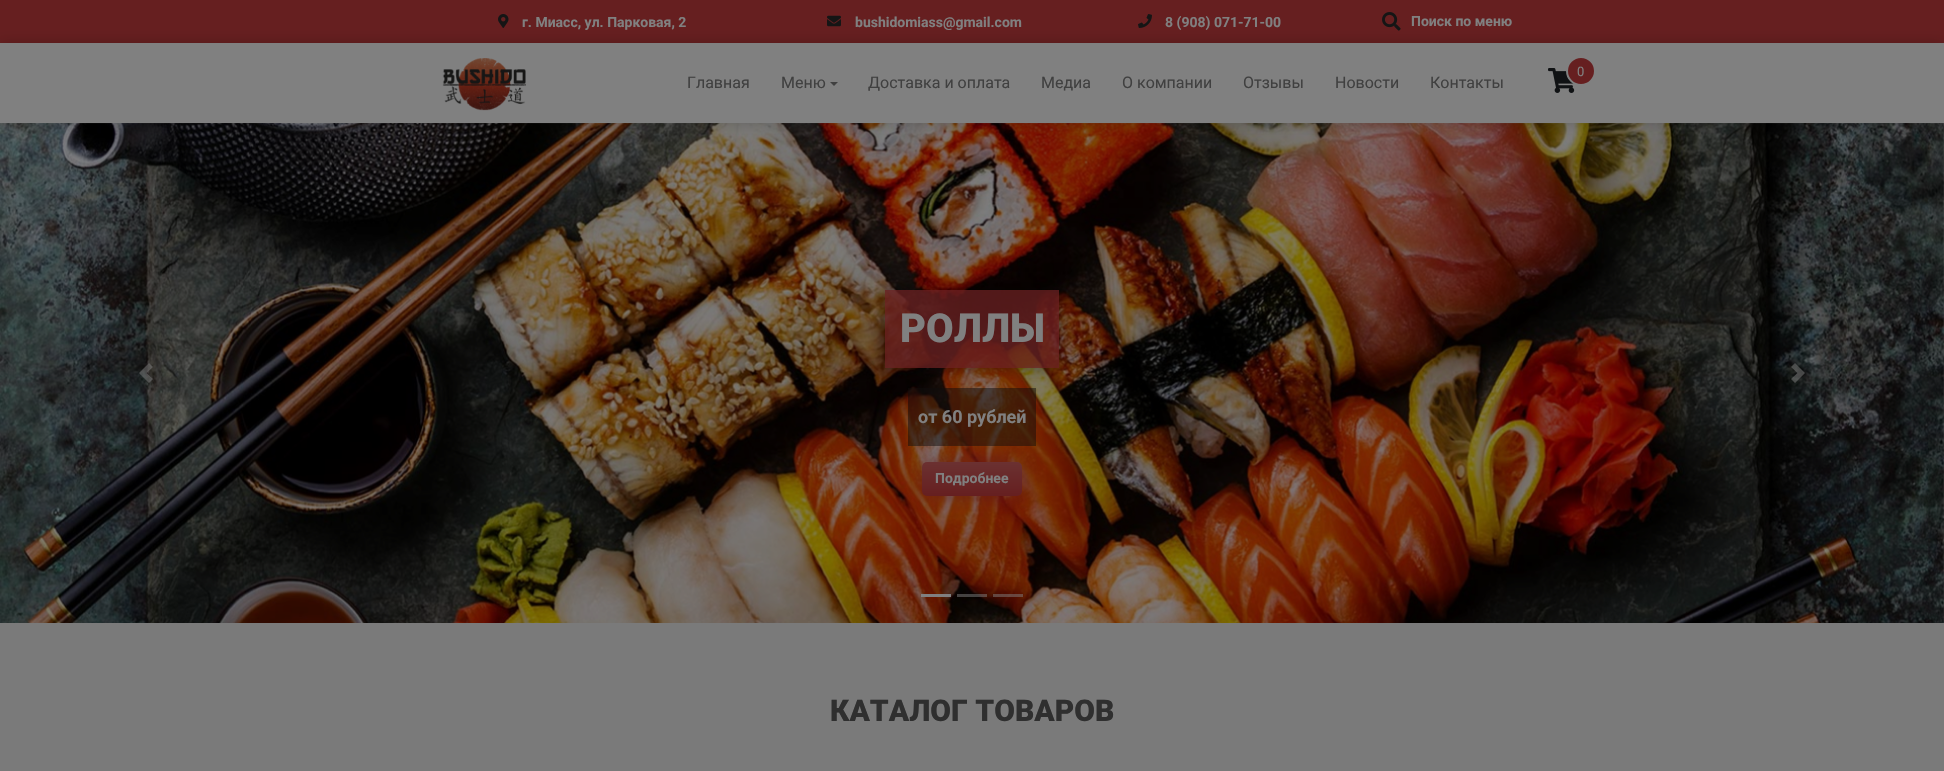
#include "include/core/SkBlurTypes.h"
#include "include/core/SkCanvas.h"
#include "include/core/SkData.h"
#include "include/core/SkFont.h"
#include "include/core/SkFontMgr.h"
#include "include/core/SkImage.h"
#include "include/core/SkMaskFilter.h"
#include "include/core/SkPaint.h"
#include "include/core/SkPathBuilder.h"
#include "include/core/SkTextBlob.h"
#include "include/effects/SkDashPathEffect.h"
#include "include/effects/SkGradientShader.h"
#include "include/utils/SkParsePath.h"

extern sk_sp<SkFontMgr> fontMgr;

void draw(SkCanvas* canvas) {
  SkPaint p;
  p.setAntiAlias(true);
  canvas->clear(SkColorSetRGB(122, 122, 122));
  p.setColor(SkColorSetRGB(102, 31, 32));
  canvas->drawRect(SkRect::MakeLTRB(0, 0, 1944, 43), p);
  canvas->drawImageRect(SkImages::DeferredFromEncodedData(SkData::MakeFromFileName("images/1.png")), SkRect::MakeLTRB(498, 14, 509, 28), SkSamplingOptions());
  canvas->drawImageRect(SkImages::DeferredFromEncodedData(SkData::MakeFromFileName("images/2.png")), SkRect::MakeLTRB(827, 15, 841, 27), SkSamplingOptions());
  canvas->drawImageRect(SkImages::DeferredFromEncodedData(SkData::MakeFromFileName("images/3.png")), SkRect::MakeLTRB(1138, 14, 1152, 28), SkSamplingOptions());
  canvas->drawImageRect(SkImages::DeferredFromEncodedData(SkData::MakeFromFileName("images/4.png")), SkRect::MakeLTRB(1382, 12, 1401, 31), SkSamplingOptions());
  canvas->drawImageRect(SkImages::DeferredFromEncodedData(SkData::MakeFromFileName("images/7.png")), SkRect::MakeLTRB(0, 123, 1944, 623), SkSamplingOptions());
  p.setColor(SkColorSetARGB(48, 0, 0, 0));
  p.setMaskFilter(SkMaskFilter::MakeBlur(kNormal_SkBlurStyle, 6));
  canvas->drawRect(SkRect::MakeLTRB(0, 43, 1944, 123), p);
  p.setMaskFilter(nullptr);
  p.setColor(SkColorSetRGB(128, 128, 128));
  canvas->drawRect(SkRect::MakeLTRB(0, 43, 1944, 123), p);
  canvas->drawImageRect(SkImages::DeferredFromEncodedData(SkData::MakeFromFileName("images/5.png")), SkRect::MakeLTRB(442, 58, 526, 111), SkSamplingOptions());
  canvas->drawImageRect(SkImages::DeferredFromEncodedData(SkData::MakeFromFileName("images/6.png")), SkRect::MakeLTRB(1548, 68, 1575, 93), SkSamplingOptions());
  p.setColor(SkColorSetRGB(102, 31, 32));
  canvas->drawCircle(1581, 71, 14, p);
  p.setStyle(SkPaint::kStroke_Style);
  p.setStrokeWidth(2);
  p.setColor(SkColorSetRGB(128, 128, 128));
  canvas->drawCircle(1581, 71, 14, p);
  p.setStyle(SkPaint::kFill_Style);
  p.setColor(SkColorSetRGB(64, 64, 64));
  canvas->drawPath(SkPathBuilder().moveTo(830, 82).lineTo(838, 82).lineTo(834, 86).close().detach(), p);
  p.setColor(SkColorSetARGB(128, 128, 128, 128));
  canvas->drawPath(SkPathBuilder().moveTo(149, 363).lineTo(139, 373).lineTo(149, 383).lineTo(153, 379).lineTo(146.5f, 373).lineTo(153, 367).close().detach(), p);
  canvas->save();
  canvas->clipPath(SkPathBuilder(SkPathFillType::kEvenOdd).moveTo(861, 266).lineTo(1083, 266).lineTo(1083, 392).lineTo(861, 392).close().moveTo(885, 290).lineTo(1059, 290).lineTo(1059, 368).lineTo(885, 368).close().detach(), true);
  p.setColor(SkColorSetARGB(105, 0, 0, 0));
  p.setMaskFilter(SkMaskFilter::MakeBlur(kNormal_SkBlurStyle, 7.5f));
  canvas->drawRect(SkRect::MakeLTRB(885, 290, 1059, 368), p);
  p.setMaskFilter(nullptr);
  canvas->restore();
  p.setColor(SkColorSetARGB(199, 102, 31, 32));
  canvas->drawRect(SkRect::MakeLTRB(885, 290, 1059, 368), p);
  p.setColor(SkColorSetARGB(128, 14, 12, 12));
  canvas->drawRect(SkRect::MakeLTRB(908, 388, 1036, 446), p);
  p.setColor(SkColorSetARGB(201, 102, 31, 32));
  p.setMaskFilter(SkMaskFilter::MakeBlur(kNormal_SkBlurStyle, 10));
  canvas->drawRoundRect(SkRect::MakeLTRB(922, 462, 1022, 496), 5, 5, p);
  p.setMaskFilter(nullptr);
  {
    const SkColor colors[] = {SkColorSetRGB(102, 31, 32), SkColorSetRGB(107, 49, 49)};
    const float stops[] = {0, 1};
    const SkPoint ends[] = {{972, 496}, {972, 462}};
    p.setShader(SkGradientShader::MakeLinear(ends, colors, stops, 2, SkTileMode::kClamp));
    p.setAlpha(255);
  }
  canvas->drawRoundRect(SkRect::MakeLTRB(922, 462, 1022, 496), 5, 5, p);
  p.setShader(nullptr);
  p.setColor(SkColorSetARGB(128, 128, 128, 128));
  canvas->drawPath(SkPathBuilder().moveTo(1795, 363).lineTo(1791, 367).lineTo(1797.5f, 373).lineTo(1791, 379).lineTo(1795, 383).lineTo(1805, 373).close().detach(), p);
  p.setColor(SkColorSetRGB(128, 128, 128));
  canvas->drawRect(SkRect::MakeLTRB(921, 594, 951, 597), p);
  p.setColor(SkColorSetARGB(128, 128, 128, 128));
  canvas->drawRect(SkRect::MakeLTRB(957, 594, 987, 597), p);
  canvas->drawRect(SkRect::MakeLTRB(993, 594, 1023, 597), p);
  SkFont font1(fontMgr->matchFamilyStyle("Roboto", SkFontStyle::Bold()), 14);
  font1.setSubpixel(true);
  p.setColor(SkColorSetRGB(128, 128, 128));
  canvas->drawString("г. Миасс, ул. Парковая, 2", 522, 27, font1, p);
  canvas->drawString("bushidomiass@gmail.com", 855, 27, font1, p);
  canvas->drawString("8 (908) 071-71-00", 1165, 27, font1, p);
  canvas->drawString("Поиск по меню", 1411, 26, font1, p);
  SkFont font2(fontMgr->matchFamilyStyle("Roboto", SkFontStyle::Normal()), 13);
  font2.setSubpixel(true);
  canvas->drawString("0", 1577, 76, font2, p);
  SkFont font3(fontMgr->matchFamilyStyle("Roboto", SkFontStyle::Normal()), 16);
  font3.setSubpixel(true);
  p.setColor(SkColorSetRGB(64, 64, 64));
  canvas->drawString("Главная", 687, 88, font3, p);
  canvas->drawString("Меню", 781, 88, font3, p);
  canvas->drawString("Доставка и оплата", 868, 88, font3, p);
  canvas->drawString("Медиа", 1041, 88, font3, p);
  canvas->drawString("О компании", 1122, 88, font3, p);
  canvas->drawString("Отзывы", 1243, 88, font3, p);
  canvas->drawString("Новости", 1335, 88, font3, p);
  canvas->drawString("Контакты", 1430, 88, font3, p);
  SkFont font4(fontMgr->matchFamilyStyle("Roboto", SkFontStyle(900, SkFontStyle::kNormal_Width, SkFontStyle::kUpright_Slant)), 40);
  font4.setSubpixel(true);
  p.setColor(SkColorSetRGB(128, 128, 128));
  canvas->drawString("РОЛЛЫ", 900, 342, font4, p);
  SkFont font5(fontMgr->matchFamilyStyle("Roboto", SkFontStyle::Bold()), 18);
  font5.setSubpixel(true);
  canvas->drawString("от 60 рублей", 918, 423, font5, p);
  canvas->drawString("Подробнее", 935, 483, font1, p);
  SkFont font6(fontMgr->matchFamilyStyle("Roboto", SkFontStyle(900, SkFontStyle::kNormal_Width, SkFontStyle::kUpright_Slant)), 30);
  font6.setSubpixel(true);
  p.setColor(SkColorSetRGB(47, 47, 47));
  canvas->drawString("КАТАЛОГ ТОВАРОВ", 830, 721, font6, p);
}
